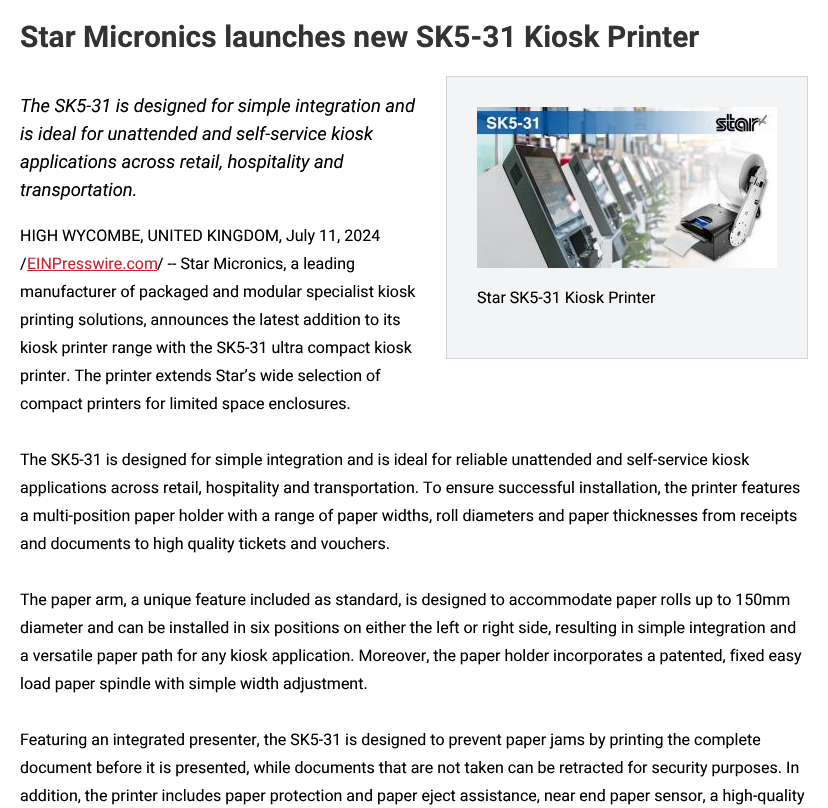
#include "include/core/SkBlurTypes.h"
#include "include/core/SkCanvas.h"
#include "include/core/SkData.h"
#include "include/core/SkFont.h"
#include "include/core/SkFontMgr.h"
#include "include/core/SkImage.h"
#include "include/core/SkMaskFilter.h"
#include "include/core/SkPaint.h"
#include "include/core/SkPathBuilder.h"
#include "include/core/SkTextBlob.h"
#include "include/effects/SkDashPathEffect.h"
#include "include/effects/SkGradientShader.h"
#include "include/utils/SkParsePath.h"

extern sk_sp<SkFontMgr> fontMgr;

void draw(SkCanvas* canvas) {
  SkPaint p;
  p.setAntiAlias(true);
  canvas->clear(SK_ColorWHITE);
  p.setColor(SkColorSetRGB(193, 40, 48));
  canvas->drawRect(SkRect::MakeLTRB(27, 270, 157, 271), p);
  p.setColor(SkColorSetRGB(243, 244, 246));
  canvas->drawRect(SkRect::MakeLTRB(446.5f, 76.5f, 807.5f, 358.5f), p);
  p.setStyle(SkPaint::kStroke_Style);
  p.setStrokeWidth(1);
  p.setColor(SkColorSetRGB(209, 213, 219));
  canvas->drawRect(SkRect::MakeLTRB(446.5f, 76.5f, 807.5f, 358.5f), p);
  canvas->drawImageRect(SkImages::DeferredFromEncodedData(SkData::MakeFromFileName("images/1.png")), SkRect::MakeLTRB(477, 107, 777, 268), SkSamplingOptions());
  SkFont font1(fontMgr->matchFamilyStyle("Roboto", SkFontStyle::Bold()), 30);
  font1.setSubpixel(true);
  p.setStyle(SkPaint::kFill_Style);
  p.setColor(SkColorSetRGB(51, 51, 51));
  canvas->drawString("Star Micronics launches new SK5-31 Kiosk Printer", 20, 47, font1, p);
  SkFont font2(fontMgr->matchFamilyStyle("Roboto", SkFontStyle::Italic()), 18.4f);
  font2.setSubpixel(true);
  p.setColor(SK_ColorBLACK);
  canvas->drawString("The SK5-31 is designed for simple integration and", 20, 112, font2, p);
  canvas->drawString("is ideal for unattended and self-service kiosk", 20, 140, font2, p);
  canvas->drawString("applications across retail, hospitality and", 20, 168, font2, p);
  canvas->drawString("transportation.", 20, 196, font2, p);
  SkFont font3(fontMgr->matchFamilyStyle("Roboto", SkFontStyle::Normal()), 16);
  font3.setSubpixel(true);
  canvas->drawString("HIGH WYCOMBE, UNITED KINGDOM, July 11, 2024", 20, 241, font3, p);
  canvas->drawString("/", 20, 269, font3, p);
  p.setColor(SkColorSetRGB(193, 40, 48));
  canvas->drawString("EINPresswire.com", 27, 269, font3, p);
  p.setColor(SK_ColorBLACK);
  canvas->drawString("/ -- Star Micronics, a leading", 157, 269, font3, p);
  canvas->drawString("manufacturer of packaged and modular specialist kiosk", 20, 297, font3, p);
  canvas->drawString("Star SK5-31 Kiosk Printer", 477, 303, font3, p);
  canvas->drawString("printing solutions, announces the latest addition to its", 20, 325, font3, p);
  canvas->drawString("kiosk printer range with the SK5-31 ultra compact kiosk", 20, 353, font3, p);
  canvas->drawString("printer. The printer extends Star’s wide selection of", 20, 381, font3, p);
  canvas->drawString("compact printers for limited space enclosures.", 20, 409, font3, p);
  canvas->drawString("The SK5-31 is designed for simple integration and is ideal for reliable unattended and self-service kiosk", 20, 465, font3, p);
  canvas->drawString("applications across retail, hospitality and transportation. To ensure successful installation, the printer features", 20, 493, font3, p);
  canvas->drawString("a multi-position paper holder with a range of paper widths, roll diameters and paper thicknesses from receipts", 20, 521, font3, p);
  canvas->drawString("and documents to high quality tickets and vouchers.", 20, 549, font3, p);
  canvas->drawString("The paper arm, a unique feature included as standard, is designed to accommodate paper rolls up to 150mm", 20, 605, font3, p);
  canvas->drawString("diameter and can be installed in six positions on either the left or right side, resulting in simple integration and", 20, 633, font3, p);
  canvas->drawString("a versatile paper path for any kiosk application. Moreover, the paper holder incorporates a patented, fixed easy", 20, 661, font3, p);
  canvas->drawString("load paper spindle with simple width adjustment.", 20, 689, font3, p);
  canvas->drawString("Featuring an integrated presenter, the SK5-31 is designed to prevent paper jams by printing the complete", 20, 745, font3, p);
  canvas->drawString("document before it is presented, while documents that are not taken can be retracted for security purposes. In", 20, 773, font3, p);
  canvas->drawString("addition, the printer includes paper protection and paper eject assistance, near end paper sensor, a high-quality", 20, 801, font3, p);
}
